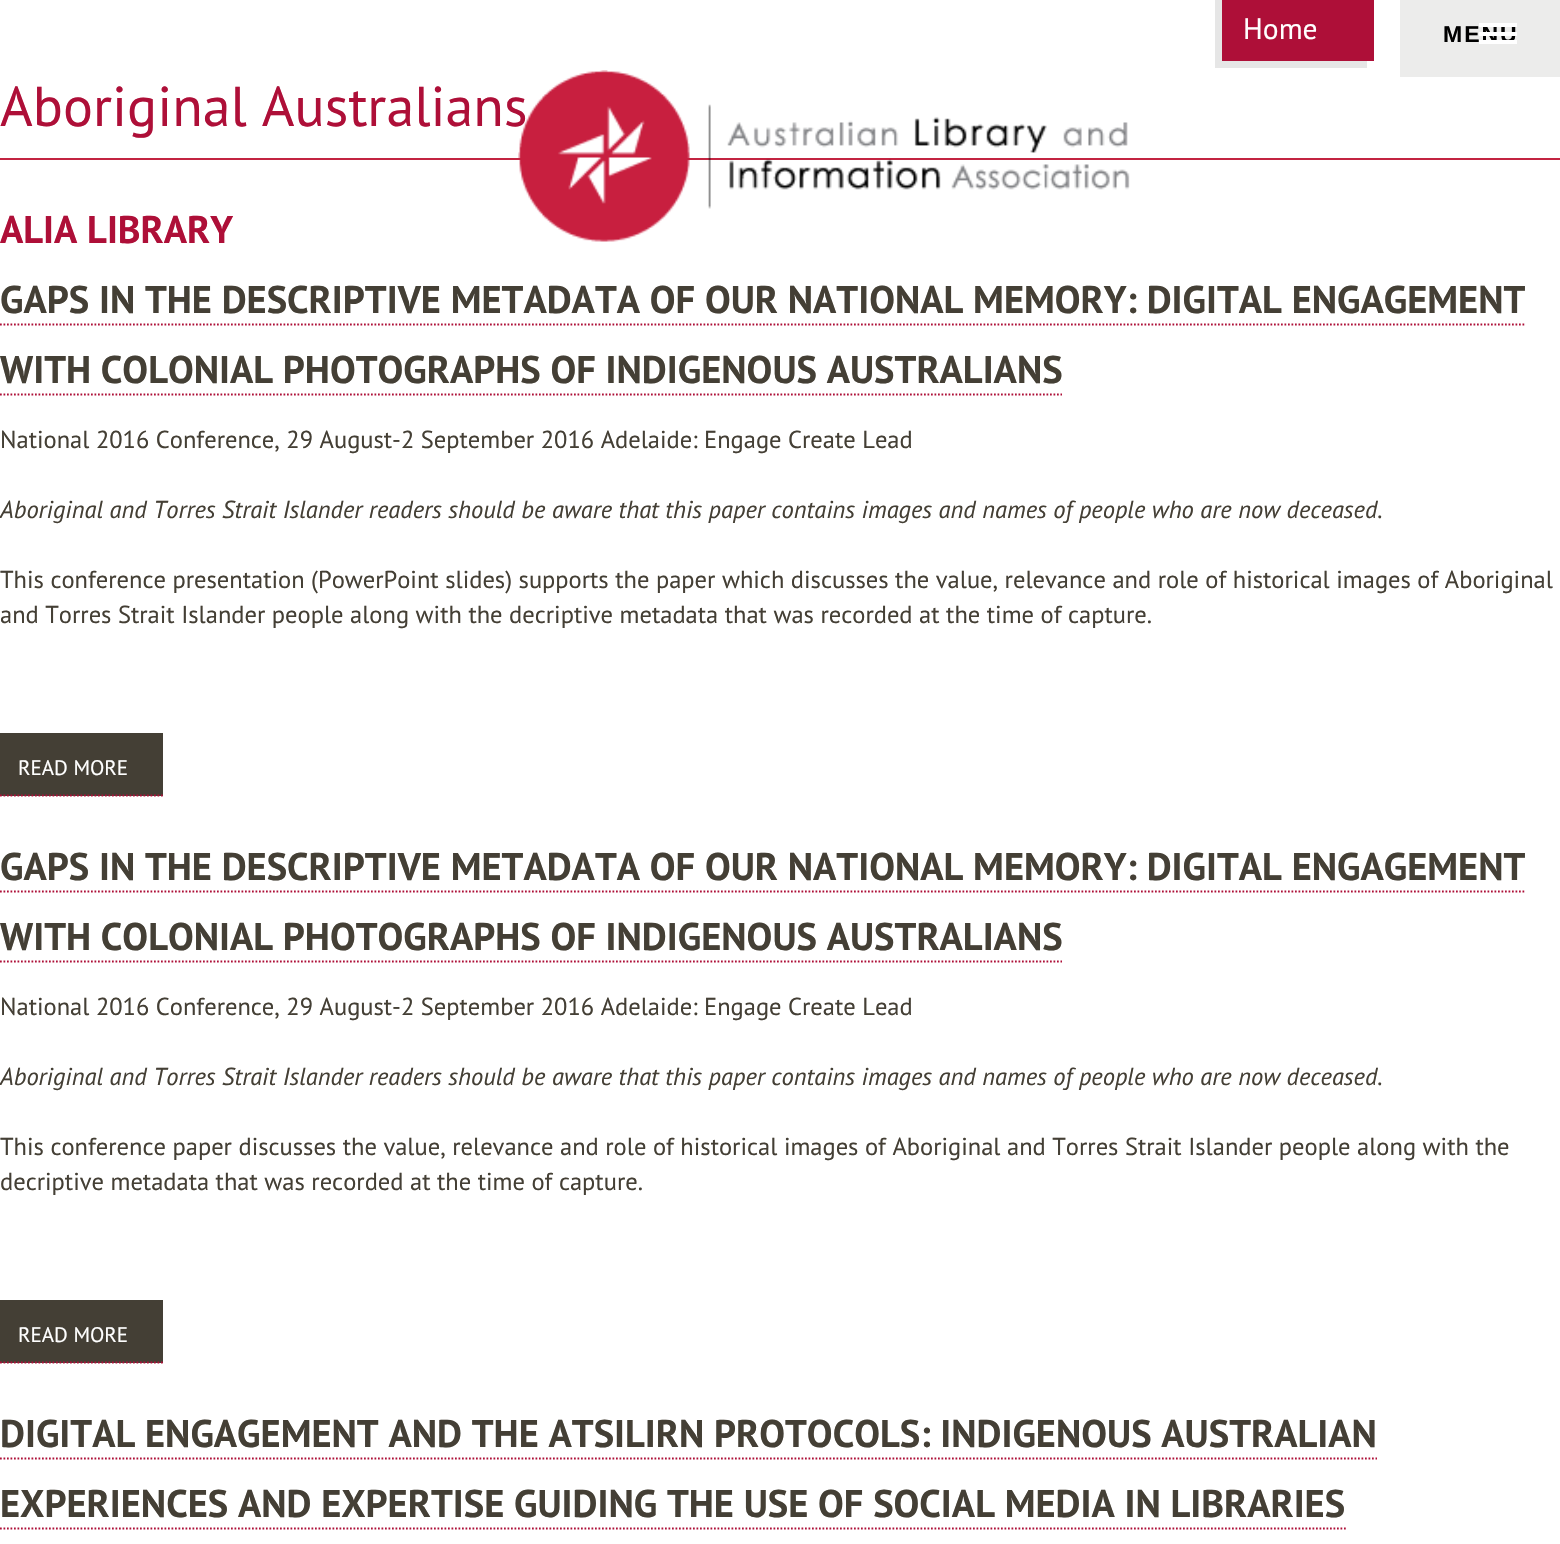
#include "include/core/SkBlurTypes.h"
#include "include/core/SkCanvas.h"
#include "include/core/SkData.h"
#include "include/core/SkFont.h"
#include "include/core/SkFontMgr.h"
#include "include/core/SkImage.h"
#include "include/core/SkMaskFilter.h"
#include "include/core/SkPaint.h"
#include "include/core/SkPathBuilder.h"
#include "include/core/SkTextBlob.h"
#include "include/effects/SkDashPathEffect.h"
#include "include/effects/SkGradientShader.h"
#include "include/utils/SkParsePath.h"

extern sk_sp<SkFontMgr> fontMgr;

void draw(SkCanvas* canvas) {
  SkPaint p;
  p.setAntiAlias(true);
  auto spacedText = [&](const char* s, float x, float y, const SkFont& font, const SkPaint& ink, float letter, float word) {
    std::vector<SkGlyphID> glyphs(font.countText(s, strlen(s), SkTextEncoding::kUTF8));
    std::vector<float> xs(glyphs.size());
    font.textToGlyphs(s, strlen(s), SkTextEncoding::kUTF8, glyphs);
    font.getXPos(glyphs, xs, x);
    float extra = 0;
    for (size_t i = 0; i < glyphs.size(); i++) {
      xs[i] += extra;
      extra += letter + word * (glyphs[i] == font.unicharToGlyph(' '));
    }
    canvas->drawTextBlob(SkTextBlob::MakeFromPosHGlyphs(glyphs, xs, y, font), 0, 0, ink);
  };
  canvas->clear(SK_ColorWHITE);
  p.setColor(SkColorSetRGB(230, 230, 230));
  canvas->drawPath(SkPathBuilder().moveTo(1215, 0).lineTo(1215, 68).lineTo(1367, 68).lineTo(1367, 61).lineTo(1222, 61).lineTo(1222, 0).close().detach(), p);
  p.setColor(SkColorSetRGB(174, 15, 56));
  canvas->drawRect(SkRect::MakeLTRB(1222, 0, 1374, 61), p);
  p.setColor(SkColorSetRGB(195, 36, 65));
  canvas->drawRect(SkRect::MakeLTRB(0, 158, 1560, 160), p);
  p.setStyle(SkPaint::kStroke_Style);
  p.setStrokeWidth(1.8f);
  p.setColor(SkColorSetRGB(174, 15, 56));
  p.setPathEffect(SkDashPathEffect::Make({{1.75f, 1.75f}}, 0));
  canvas->drawPath(SkPathBuilder().moveTo(0, 324.5f).lineTo(1526, 324.5f).detach(), p);
  p.setPathEffect(nullptr);
  p.setPathEffect(SkDashPathEffect::Make({{1.75f, 1.75f}}, 0));
  canvas->drawPath(SkPathBuilder().moveTo(0, 394.5f).lineTo(1062, 394.5f).detach(), p);
  p.setPathEffect(nullptr);
  p.setStyle(SkPaint::kFill_Style);
  p.setColor(SkColorSetRGB(68, 63, 53));
  canvas->drawRect(SkRect::MakeLTRB(0, 733, 163, 796), p);
  p.setStyle(SkPaint::kStroke_Style);
  p.setColor(SkColorSetRGB(174, 15, 56));
  p.setPathEffect(SkDashPathEffect::Make({{1.75f, 1.75f}}, 0));
  canvas->drawPath(SkPathBuilder().moveTo(0, 795.5f).lineTo(163, 795.5f).detach(), p);
  p.setPathEffect(nullptr);
  p.setPathEffect(SkDashPathEffect::Make({{1.75f, 1.75f}}, 0));
  canvas->drawPath(SkPathBuilder().moveTo(0, 891.5f).lineTo(1526, 891.5f).detach(), p);
  p.setPathEffect(nullptr);
  p.setPathEffect(SkDashPathEffect::Make({{1.75f, 1.75f}}, 0));
  canvas->drawPath(SkPathBuilder().moveTo(0, 961.5f).lineTo(1062, 961.5f).detach(), p);
  p.setPathEffect(nullptr);
  p.setStyle(SkPaint::kFill_Style);
  p.setColor(SkColorSetRGB(68, 63, 53));
  canvas->drawRect(SkRect::MakeLTRB(0, 1300, 163, 1363), p);
  p.setStyle(SkPaint::kStroke_Style);
  p.setColor(SkColorSetRGB(174, 15, 56));
  p.setPathEffect(SkDashPathEffect::Make({{1.75f, 1.75f}}, 0));
  canvas->drawPath(SkPathBuilder().moveTo(0, 1362.5f).lineTo(163, 1362.5f).detach(), p);
  p.setPathEffect(nullptr);
  p.setPathEffect(SkDashPathEffect::Make({{1.75f, 1.75f}}, 0));
  canvas->drawPath(SkPathBuilder().moveTo(0, 1458.5f).lineTo(1377, 1458.5f).detach(), p);
  p.setPathEffect(nullptr);
  p.setPathEffect(SkDashPathEffect::Make({{1.75f, 1.75f}}, 0));
  canvas->drawPath(SkPathBuilder().moveTo(0, 1528.5f).lineTo(1346, 1528.5f).detach(), p);
  p.setPathEffect(nullptr);
  p.setStyle(SkPaint::kFill_Style);
  p.setColor(SkColorSetRGB(236, 236, 235));
  canvas->drawRect(SkRect::MakeLTRB(1400, 0, 1560, 77), p);
  SkFont font1(fontMgr->matchFamilyStyle("PT Sans", SkFontStyle::Normal()), 29.5f);
  font1.setSubpixel(true);
  p.setColor(SK_ColorWHITE);
  canvas->drawString("Home", 1243, 39, font1, p);
  SkFont font2(fontMgr->matchFamilyStyle("PT Sans", SkFontStyle::Normal()), 56);
  font2.setSubpixel(true);
  p.setColor(SkColorSetRGB(174, 15, 56));
  canvas->drawString("Aboriginal Australians", 0, 126, font2, p);
  SkFont font3(fontMgr->matchFamilyStyle("PT Sans", SkFontStyle::Bold()), 38.5f);
  font3.setSubpixel(true);
  canvas->drawString("ALIA LIBRARY", 0, 243, font3, p);
  p.setColor(SkColorSetRGB(68, 63, 53));
  canvas->drawString("GAPS IN THE DESCRIPTIVE METADATA OF OUR NATIONAL MEMORY: DIGITAL ENGAGEMENT", 0, 313, font3, p);
  canvas->drawString("WITH COLONIAL PHOTOGRAPHS OF INDIGENOUS AUSTRALIANS", 0, 383, font3, p);
  SkFont font4(fontMgr->matchFamilyStyle("PT Sans", SkFontStyle::Normal()), 24.5f);
  font4.setSubpixel(true);
  canvas->drawString("National 2016 Conference, 29 August-2 September 2016 Adelaide: Engage Create Lead", 0, 448, font4, p);
  SkFont font5(fontMgr->matchFamilyStyle("PT Sans", SkFontStyle::Italic()), 24.5f);
  font5.setSubpixel(true);
  canvas->drawString("Aboriginal and Torres Strait Islander readers should be aware that this paper contains images and names of people who are now deceased.", 0, 518, font5, p);
  canvas->drawString("This conference presentation (PowerPoint slides) supports the paper which discusses the value, relevance and role of historical images of Aboriginal", 0, 588, font4, p);
  canvas->drawString("and Torres Strait Islander people along with the decriptive metadata that was recorded at the time of capture.", 0, 623, font4, p);
  SkFont font6(fontMgr->matchFamilyStyle("PT Sans", SkFontStyle::Normal()), 21);
  font6.setSubpixel(true);
  p.setColor(SK_ColorWHITE);
  canvas->drawString("READ MORE", 18, 775, font6, p);
  p.setColor(SkColorSetRGB(68, 63, 53));
  canvas->drawString("GAPS IN THE DESCRIPTIVE METADATA OF OUR NATIONAL MEMORY: DIGITAL ENGAGEMENT", 0, 880, font3, p);
  canvas->drawString("WITH COLONIAL PHOTOGRAPHS OF INDIGENOUS AUSTRALIANS", 0, 950, font3, p);
  canvas->drawString("National 2016 Conference, 29 August-2 September 2016 Adelaide: Engage Create Lead", 0, 1015, font4, p);
  canvas->drawString("Aboriginal and Torres Strait Islander readers should be aware that this paper contains images and names of people who are now deceased.", 0, 1085, font5, p);
  canvas->drawString("This conference paper discusses the value, relevance and role of historical images of Aboriginal and Torres Strait Islander people along with the", 0, 1155, font4, p);
  canvas->drawString("decriptive metadata that was recorded at the time of capture.", 0, 1190, font4, p);
  p.setColor(SK_ColorWHITE);
  canvas->drawString("READ MORE", 18, 1342, font6, p);
  p.setColor(SkColorSetRGB(68, 63, 53));
  canvas->drawString("DIGITAL ENGAGEMENT AND THE ATSILIRN PROTOCOLS: INDIGENOUS AUSTRALIAN", 0, 1447, font3, p);
  canvas->drawString("EXPERIENCES AND EXPERTISE GUIDING THE USE OF SOCIAL MEDIA IN LIBRARIES", 0, 1517, font3, p);
  SkFont font7(fontMgr->matchFamilyStyle("Liberation Sans", SkFontStyle::Bold()), 23);
  font7.setSubpixel(true);
  p.setColor(SK_ColorBLACK);
  spacedText("MENU", 1443, 42, font7, p, 2, 0);
  p.setColor(SK_ColorWHITE);
  canvas->drawRect(SkRect::MakeLTRB(1479, 32, 1517, 36), p);
  canvas->drawRect(SkRect::MakeLTRB(1479, 23, 1517, 27), p);
  canvas->drawRect(SkRect::MakeLTRB(1479, 40, 1517, 44), p);
  canvas->drawImageRect(SkImages::DeferredFromEncodedData(SkData::MakeFromFileName("images/1.png")), SkRect::MakeLTRB(518, 70, 1130, 242), SkSamplingOptions());
}
